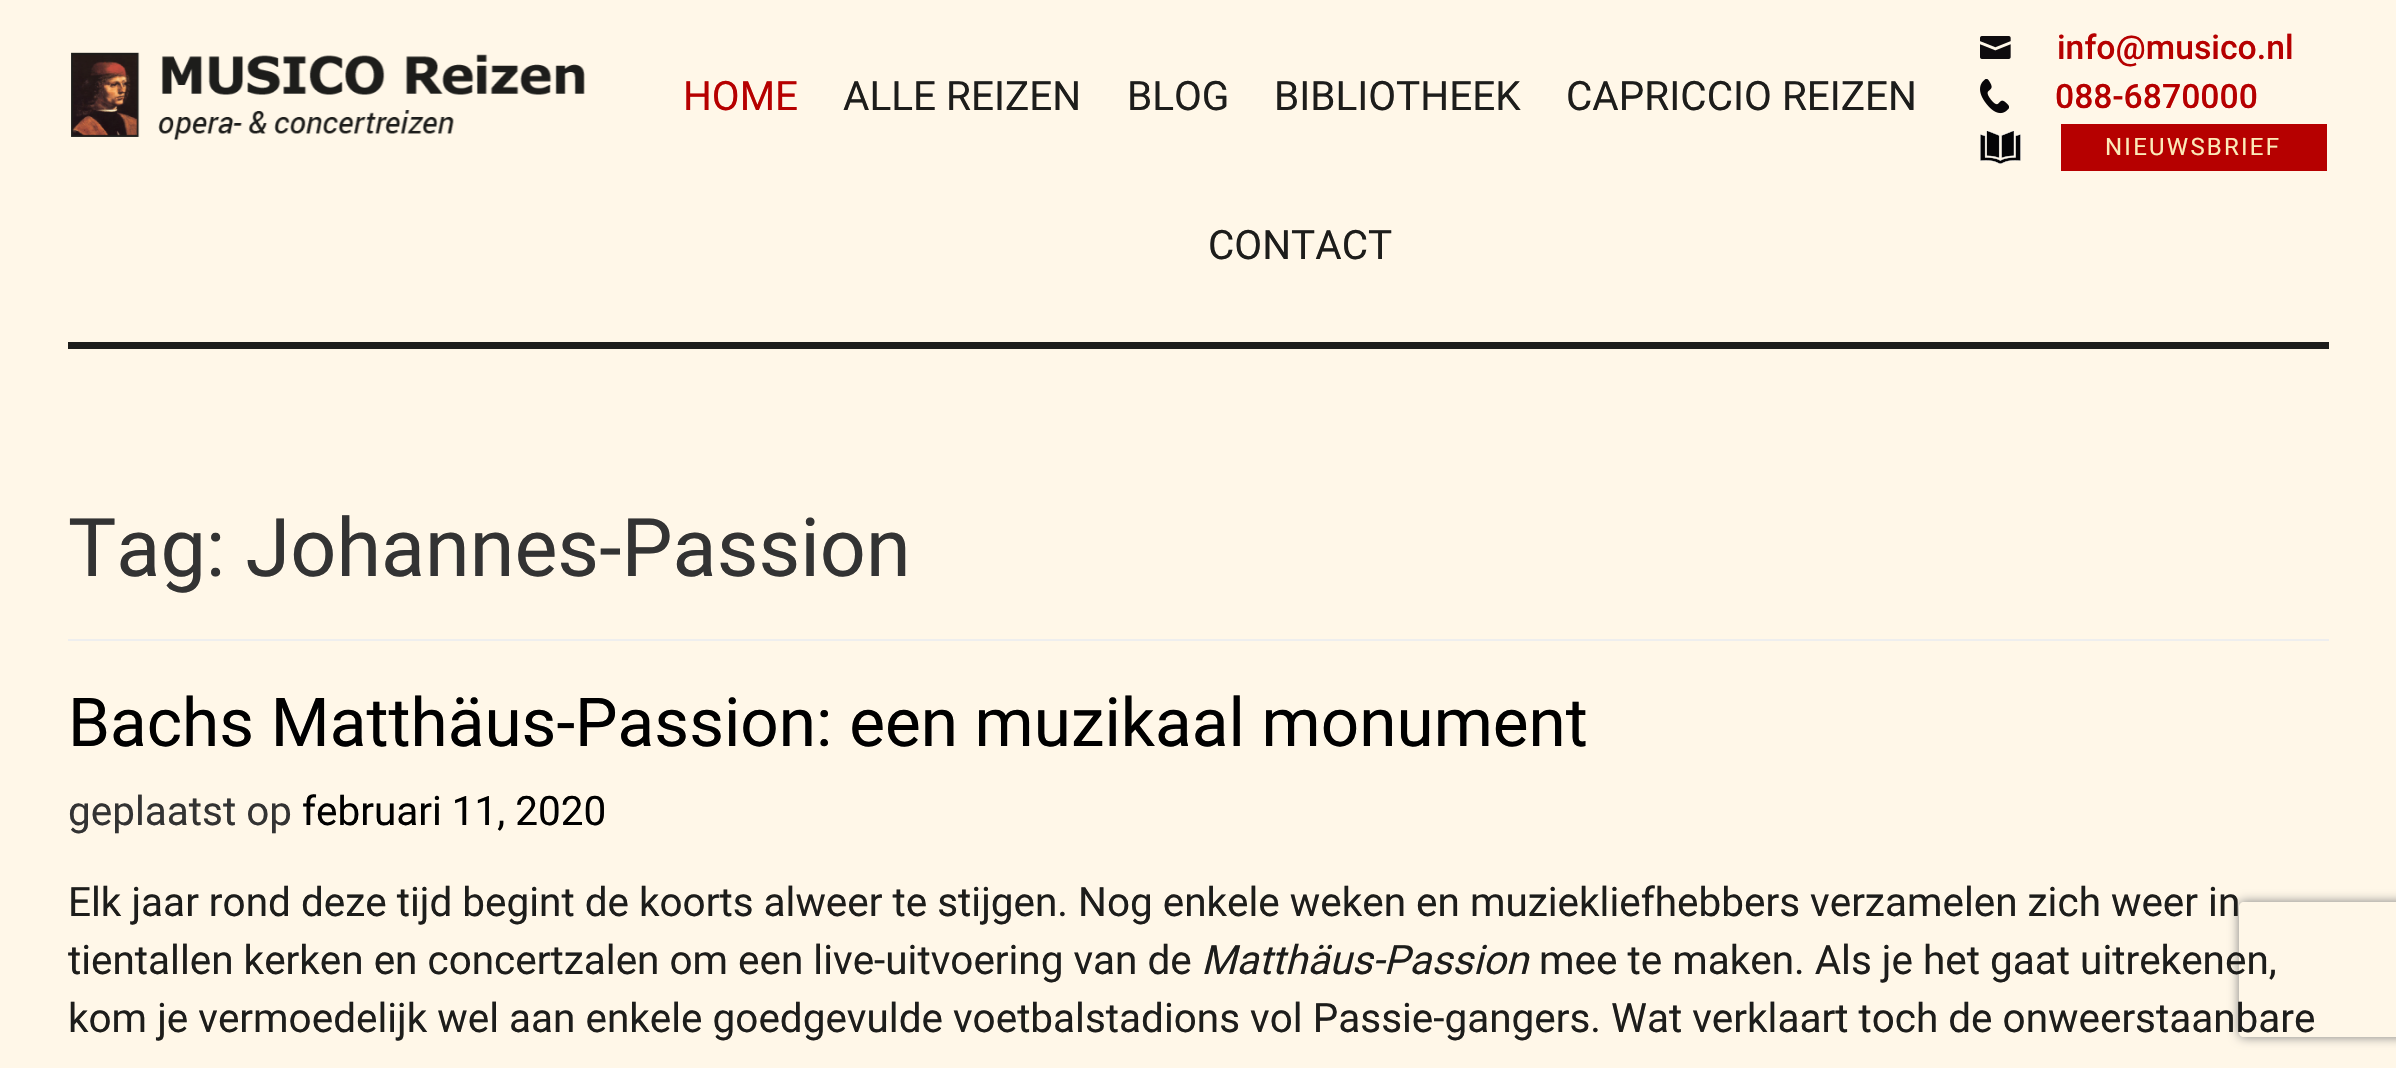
#include "include/core/SkBlurTypes.h"
#include "include/core/SkCanvas.h"
#include "include/core/SkData.h"
#include "include/core/SkFont.h"
#include "include/core/SkFontMgr.h"
#include "include/core/SkImage.h"
#include "include/core/SkMaskFilter.h"
#include "include/core/SkPaint.h"
#include "include/core/SkPathBuilder.h"
#include "include/core/SkTextBlob.h"
#include "include/effects/SkDashPathEffect.h"
#include "include/effects/SkGradientShader.h"
#include "include/utils/SkParsePath.h"

extern sk_sp<SkFontMgr> fontMgr;

void draw(SkCanvas* canvas) {
  SkPaint p;
  p.setAntiAlias(true);
  auto spacedText = [&](const char* s, float x, float y, const SkFont& font, const SkPaint& ink, float letter, float word) {
    std::vector<SkGlyphID> glyphs(font.countText(s, strlen(s), SkTextEncoding::kUTF8));
    std::vector<float> xs(glyphs.size());
    font.textToGlyphs(s, strlen(s), SkTextEncoding::kUTF8, glyphs);
    font.getXPos(glyphs, xs, x);
    float extra = 0;
    for (size_t i = 0; i < glyphs.size(); i++) {
      xs[i] += extra;
      extra += letter + word * (glyphs[i] == font.unicharToGlyph(' '));
    }
    canvas->drawTextBlob(SkTextBlob::MakeFromPosHGlyphs(glyphs, xs, y, font), 0, 0, ink);
  };
  canvas->clear(SkColorSetRGB(255, 247, 232));
  p.setColor(SkColorSetRGB(29, 29, 27));
  canvas->drawRect(SkRect::MakeLTRB(68, 342, 2329, 349), p);
  canvas->drawImageRect(SkImages::DeferredFromEncodedData(SkData::MakeFromFileName("images/1.png")), SkRect::MakeLTRB(71, 52, 585, 140), SkSamplingOptions());
  canvas->drawImageRect(SkImages::DeferredFromEncodedData(SkData::MakeFromFileName("images/2.png")), SkRect::MakeLTRB(1980, 36, 2011, 59), SkSamplingOptions());
  canvas->drawImageRect(SkImages::DeferredFromEncodedData(SkData::MakeFromFileName("images/3.png")), SkRect::MakeLTRB(1980, 79, 2009, 114), SkSamplingOptions());
  canvas->drawImageRect(SkImages::DeferredFromEncodedData(SkData::MakeFromFileName("images/4.png")), SkRect::MakeLTRB(1980, 131, 2021, 164), SkSamplingOptions());
  p.setColor(SkColorSetRGB(182, 0, 0));
  canvas->drawRect(SkRect::MakeLTRB(2061, 124, 2327, 171), p);
  p.setColor(SkColorSetRGB(238, 238, 238));
  canvas->drawRect(SkRect::MakeLTRB(68, 639, 2329, 641), p);
  canvas->save();
  canvas->clipPath(SkPathBuilder(SkPathFillType::kEvenOdd).moveTo(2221, 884).lineTo(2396, 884).lineTo(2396, 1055).lineTo(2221, 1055).close().moveTo(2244, 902).lineTo(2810, 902).cubicTo(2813, 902, 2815, 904, 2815, 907).lineTo(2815, 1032).cubicTo(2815, 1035, 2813, 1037, 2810, 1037).lineTo(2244, 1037).cubicTo(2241, 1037, 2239, 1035, 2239, 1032).lineTo(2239, 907).cubicTo(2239, 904, 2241, 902, 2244, 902).close().detach(), true);
  p.setColor(SkColorSetRGB(128, 128, 128));
  p.setMaskFilter(SkMaskFilter::MakeBlur(kNormal_SkBlurStyle, 5.5f));
  canvas->drawRoundRect(SkRect::MakeLTRB(2239, 902, 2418, 1037), 5, 5, p);
  p.setMaskFilter(nullptr);
  canvas->restore();
  SkFont font1(fontMgr->matchFamilyStyle("Roboto", SkFontStyle::Normal()), 40.5f);
  font1.setSubpixel(true);
  p.setColor(SkColorSetRGB(182, 0, 0));
  canvas->drawString("HOME", 683, 110, font1, p);
  p.setColor(SkColorSetRGB(29, 29, 27));
  canvas->drawString("ALLE REIZEN", 843, 110, font1, p);
  canvas->drawString("BLOG", 1127, 110, font1, p);
  canvas->drawString("BIBLIOTHEEK", 1274, 110, font1, p);
  canvas->drawString("CAPRICCIO REIZEN", 1566, 110, font1, p);
  canvas->drawString("CONTACT", 1208, 259, font1, p);
  SkFont font2(fontMgr->matchFamilyStyle("Roboto", SkFontStyle(500, SkFontStyle::kNormal_Width, SkFontStyle::kUpright_Slant)), 33.75f);
  font2.setSubpixel(true);
  p.setColor(SkColorSetRGB(182, 0, 0));
  canvas->drawString("info@musico.nl", 2057, 59, font2, p);
  canvas->drawString("088-6870000", 2055, 108, font2, p);
  SkFont font3(fontMgr->matchFamilyStyle("Roboto", SkFontStyle::Normal()), 24);
  font3.setSubpixel(true);
  p.setColor(SkColorSetRGB(252, 235, 185));
  spacedText("NIEUWSBRIEF", 2105, 155, font3, p, 2.25f, 0);
  SkFont font4(fontMgr->matchFamilyStyle("Roboto", SkFontStyle::Normal()), 81);
  font4.setSubpixel(true);
  p.setColor(SkColorSetRGB(51, 51, 51));
  canvas->drawString("Tag: Johannes-Passion", 68, 576, font4, p);
  SkFont font5(fontMgr->matchFamilyStyle("Roboto", SkFontStyle::Normal()), 67.5f);
  font5.setSubpixel(true);
  p.setColor(SK_ColorBLACK);
  canvas->drawString("Bachs Matthäus-Passion: een muzikaal monument", 68, 746, font5, p);
  p.setColor(SkColorSetRGB(51, 51, 51));
  canvas->drawString("geplaatst op", 68, 825, font1, p);
  p.setColor(SK_ColorBLACK);
  canvas->drawString("februari 11, 2020", 302, 825, font1, p);
  p.setColor(SkColorSetRGB(29, 29, 27));
  canvas->drawString("Elk jaar rond deze tijd begint de koorts alweer te stijgen. Nog enkele weken en muziekliefhebbers verzamelen zich weer in", 68, 916, font1, p);
  canvas->drawString("tientallen kerken en concertzalen om een live-uitvoering van de", 68, 974, font1, p);
  SkFont font6(fontMgr->matchFamilyStyle("Roboto", SkFontStyle::Italic()), 40.5f);
  font6.setSubpixel(true);
  canvas->drawString("Matthäus-Passion", 1201, 974, font6, p);
  canvas->drawString("mee te maken. Als je het gaat uitrekenen,", 1539, 974, font1, p);
  canvas->drawString("kom je vermoedelijk wel aan enkele goedgevulde voetbalstadions vol Passie-gangers. Wat verklaart toch de onweerstaanbare", 68, 1032, font1, p);
}
